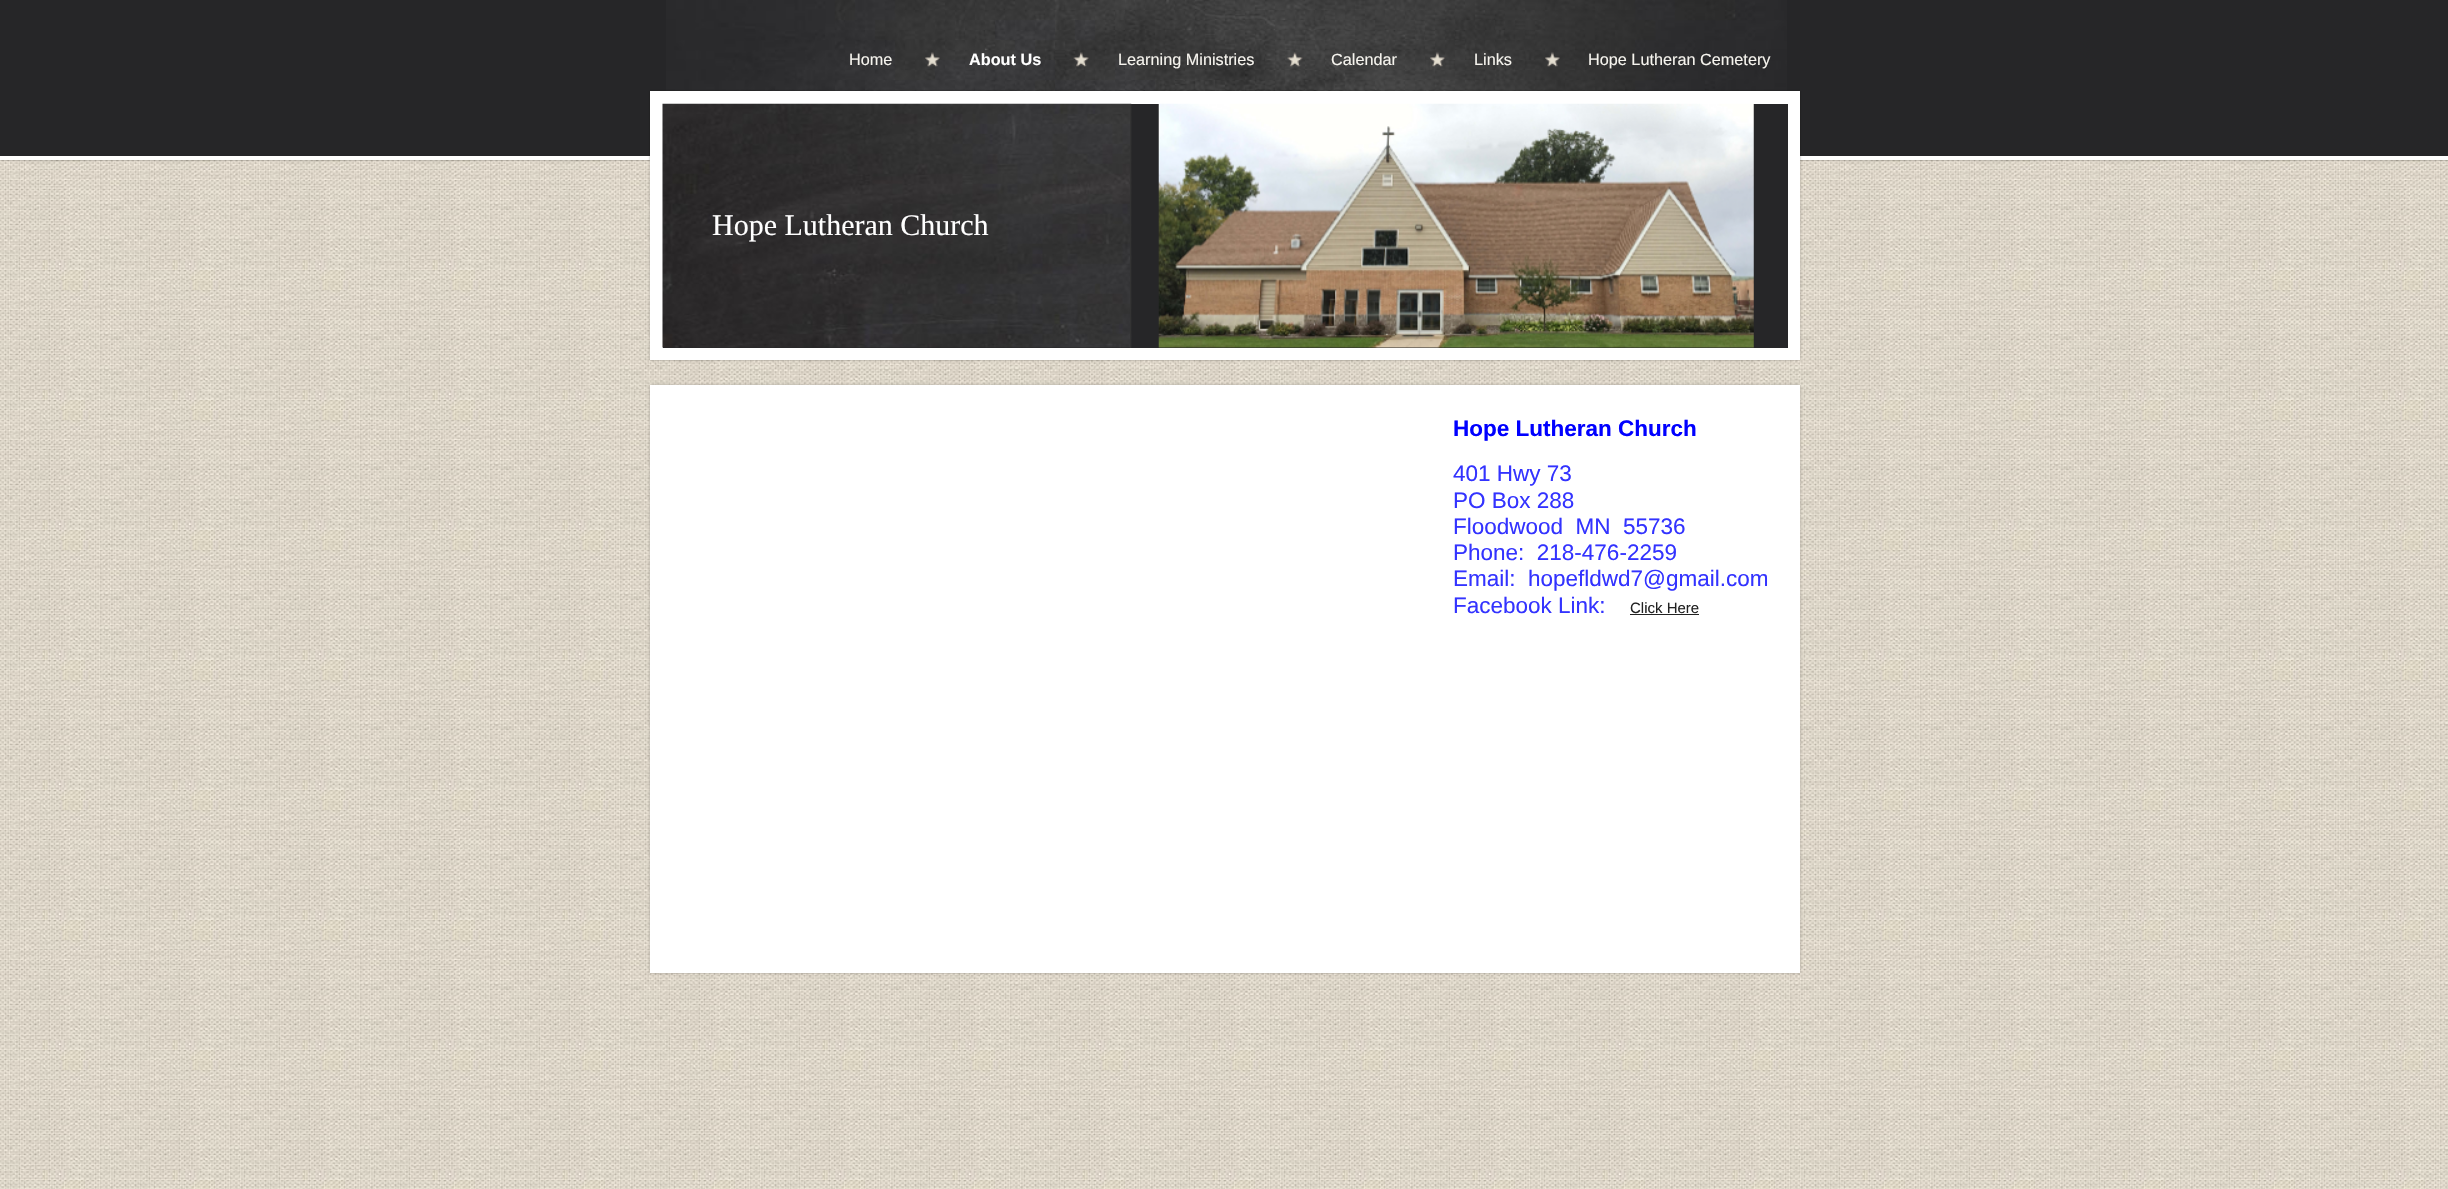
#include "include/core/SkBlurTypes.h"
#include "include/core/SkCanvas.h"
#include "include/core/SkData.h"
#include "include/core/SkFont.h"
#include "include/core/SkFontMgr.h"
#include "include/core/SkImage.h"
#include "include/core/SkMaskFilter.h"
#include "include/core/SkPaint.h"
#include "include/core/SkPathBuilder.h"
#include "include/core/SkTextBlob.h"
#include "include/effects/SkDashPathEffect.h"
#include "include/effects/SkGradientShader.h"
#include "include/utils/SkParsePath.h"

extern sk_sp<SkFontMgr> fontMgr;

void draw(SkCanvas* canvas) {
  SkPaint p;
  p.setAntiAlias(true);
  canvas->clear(SK_ColorWHITE);
  canvas->drawImageRect(SkImages::DeferredFromEncodedData(SkData::MakeFromFileName("images/1.png")), SkRect::MakeLTRB(0, 160, 2448, 1189), SkSamplingOptions());
  p.setColor(SkColorSetARGB(115, 0, 0, 0));
  p.setMaskFilter(SkMaskFilter::MakeBlur(kNormal_SkBlurStyle, 1));
  canvas->drawRect(SkRect::MakeLTRB(0, 0, 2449, 160), p);
  p.setMaskFilter(nullptr);
  p.setColor(SkColorSetRGB(38, 38, 40));
  canvas->drawRect(SkRect::MakeLTRB(0, 0, 2448, 156), p);
  canvas->drawImageRect(SkImages::DeferredFromEncodedData(SkData::MakeFromFileName("images/2.png")), SkRect::MakeLTRB(666, 0, 1787, 91), SkSamplingOptions());
  p.setColor(SK_ColorWHITE);
  canvas->drawRect(SkRect::MakeLTRB(0, 156, 2448, 160), p);
  canvas->drawImageRect(SkImages::DeferredFromEncodedData(SkData::MakeFromFileName("images/3.png")), SkRect::MakeLTRB(925, 52, 940, 67), SkSamplingOptions());
  canvas->drawImageRect(SkImages::DeferredFromEncodedData(SkData::MakeFromFileName("images/4.png")), SkRect::MakeLTRB(1073, 52, 1089, 67), SkSamplingOptions());
  canvas->drawImageRect(SkImages::DeferredFromEncodedData(SkData::MakeFromFileName("images/5.png")), SkRect::MakeLTRB(1287, 52, 1303, 67), SkSamplingOptions());
  canvas->drawImageRect(SkImages::DeferredFromEncodedData(SkData::MakeFromFileName("images/6.png")), SkRect::MakeLTRB(1430, 52, 1445, 67), SkSamplingOptions());
  canvas->drawImageRect(SkImages::DeferredFromEncodedData(SkData::MakeFromFileName("images/7.png")), SkRect::MakeLTRB(1545, 52, 1560, 67), SkSamplingOptions());
  p.setColor(SkColorSetARGB(89, 0, 0, 0));
  p.setMaskFilter(SkMaskFilter::MakeBlur(kNormal_SkBlurStyle, 1));
  canvas->drawRect(SkRect::MakeLTRB(650, 91, 1800, 360), p);
  p.setMaskFilter(nullptr);
  p.setColor(SK_ColorWHITE);
  canvas->drawRect(SkRect::MakeLTRB(650, 91, 1800, 360), p);
  p.setColor(SkColorSetRGB(38, 38, 40));
  canvas->drawRect(SkRect::MakeLTRB(663, 104, 1788, 348), p);
  canvas->drawImageRect(SkImages::DeferredFromEncodedData(SkData::MakeFromFileName("images/8.png")), SkRect::MakeLTRB(662, 103, 1132, 348), SkSamplingOptions());
  p.setColor(SkColorSetRGB(51, 51, 51));
  canvas->drawRect(SkRect::MakeLTRB(1130, 104, 1131, 348), p);
  canvas->drawImageRect(SkImages::DeferredFromEncodedData(SkData::MakeFromFileName("images/9.png")), SkRect::MakeLTRB(1158, 103, 1754, 348), SkSamplingOptions());
  p.setColor(SkColorSetARGB(89, 0, 0, 0));
  p.setMaskFilter(SkMaskFilter::MakeBlur(kNormal_SkBlurStyle, 1));
  canvas->drawRect(SkRect::MakeLTRB(650, 385, 1800, 973), p);
  p.setMaskFilter(nullptr);
  p.setColor(SK_ColorWHITE);
  canvas->drawRect(SkRect::MakeLTRB(650, 385, 1800, 973), p);
  p.setColor(SkColorSetRGB(34, 34, 34));
  canvas->drawRect(SkRect::MakeLTRB(1630, 614, 1699, 615), p);
  SkFont font1(fontMgr->matchFamilyStyle("Liberation Sans", SkFontStyle::Normal()), 16.25f);
  font1.setSubpixel(true);
  p.setColor(SkColorSetRGB(246, 244, 238));
  canvas->drawString("Home", 849, 65, font1, p);
  SkFont font2(fontMgr->matchFamilyStyle("Liberation Sans", SkFontStyle::Bold()), 16.25f);
  font2.setSubpixel(true);
  p.setColor(SK_ColorWHITE);
  canvas->drawString("About Us", 969, 65, font2, p);
  p.setColor(SkColorSetRGB(246, 244, 238));
  canvas->drawString("Learning Ministries", 1118, 65, font1, p);
  canvas->drawString("Calendar", 1331, 65, font1, p);
  canvas->drawString("Links", 1474, 65, font1, p);
  canvas->drawString("Hope Lutheran Cemetery", 1588, 65, font1, p);
  SkFont font3(fontMgr->matchFamilyStyle("Liberation Serif", SkFontStyle::Normal()), 30);
  font3.setSubpixel(true);
  p.setColor(SK_ColorWHITE);
  canvas->drawString("Hope Lutheran Church", 712, 235, font3, p);
  SkFont font4(fontMgr->matchFamilyStyle("Liberation Sans", SkFontStyle::Bold()), 22.5f);
  font4.setSubpixel(true);
  p.setColor(SkColorSetRGB(0, 0, 255));
  canvas->drawString("Hope Lutheran Church", 1453, 436, font4, p);
  SkFont font5(fontMgr->matchFamilyStyle("Liberation Sans", SkFontStyle::Normal()), 22.5f);
  font5.setSubpixel(true);
  p.setColor(SkColorSetRGB(51, 51, 255));
  canvas->drawString("401 Hwy 73", 1453, 481, font5, p);
  canvas->drawString("PO Box 288", 1453, 508, font5, p);
  canvas->drawString("Floodwood  MN  55736", 1453, 534, font5, p);
  canvas->drawString("Phone:  218-476-2259", 1453, 560, font5, p);
  canvas->drawString("Email:  hopefldwd7@gmail.com", 1453, 586, font5, p);
  canvas->drawString("Facebook Link:", 1453, 613, font5, p);
  SkFont font6(fontMgr->matchFamilyStyle("Liberation Sans", SkFontStyle::Normal()), 15);
  font6.setSubpixel(true);
  p.setColor(SkColorSetRGB(34, 34, 34));
  canvas->drawString("Click Here", 1630, 613, font6, p);
}
